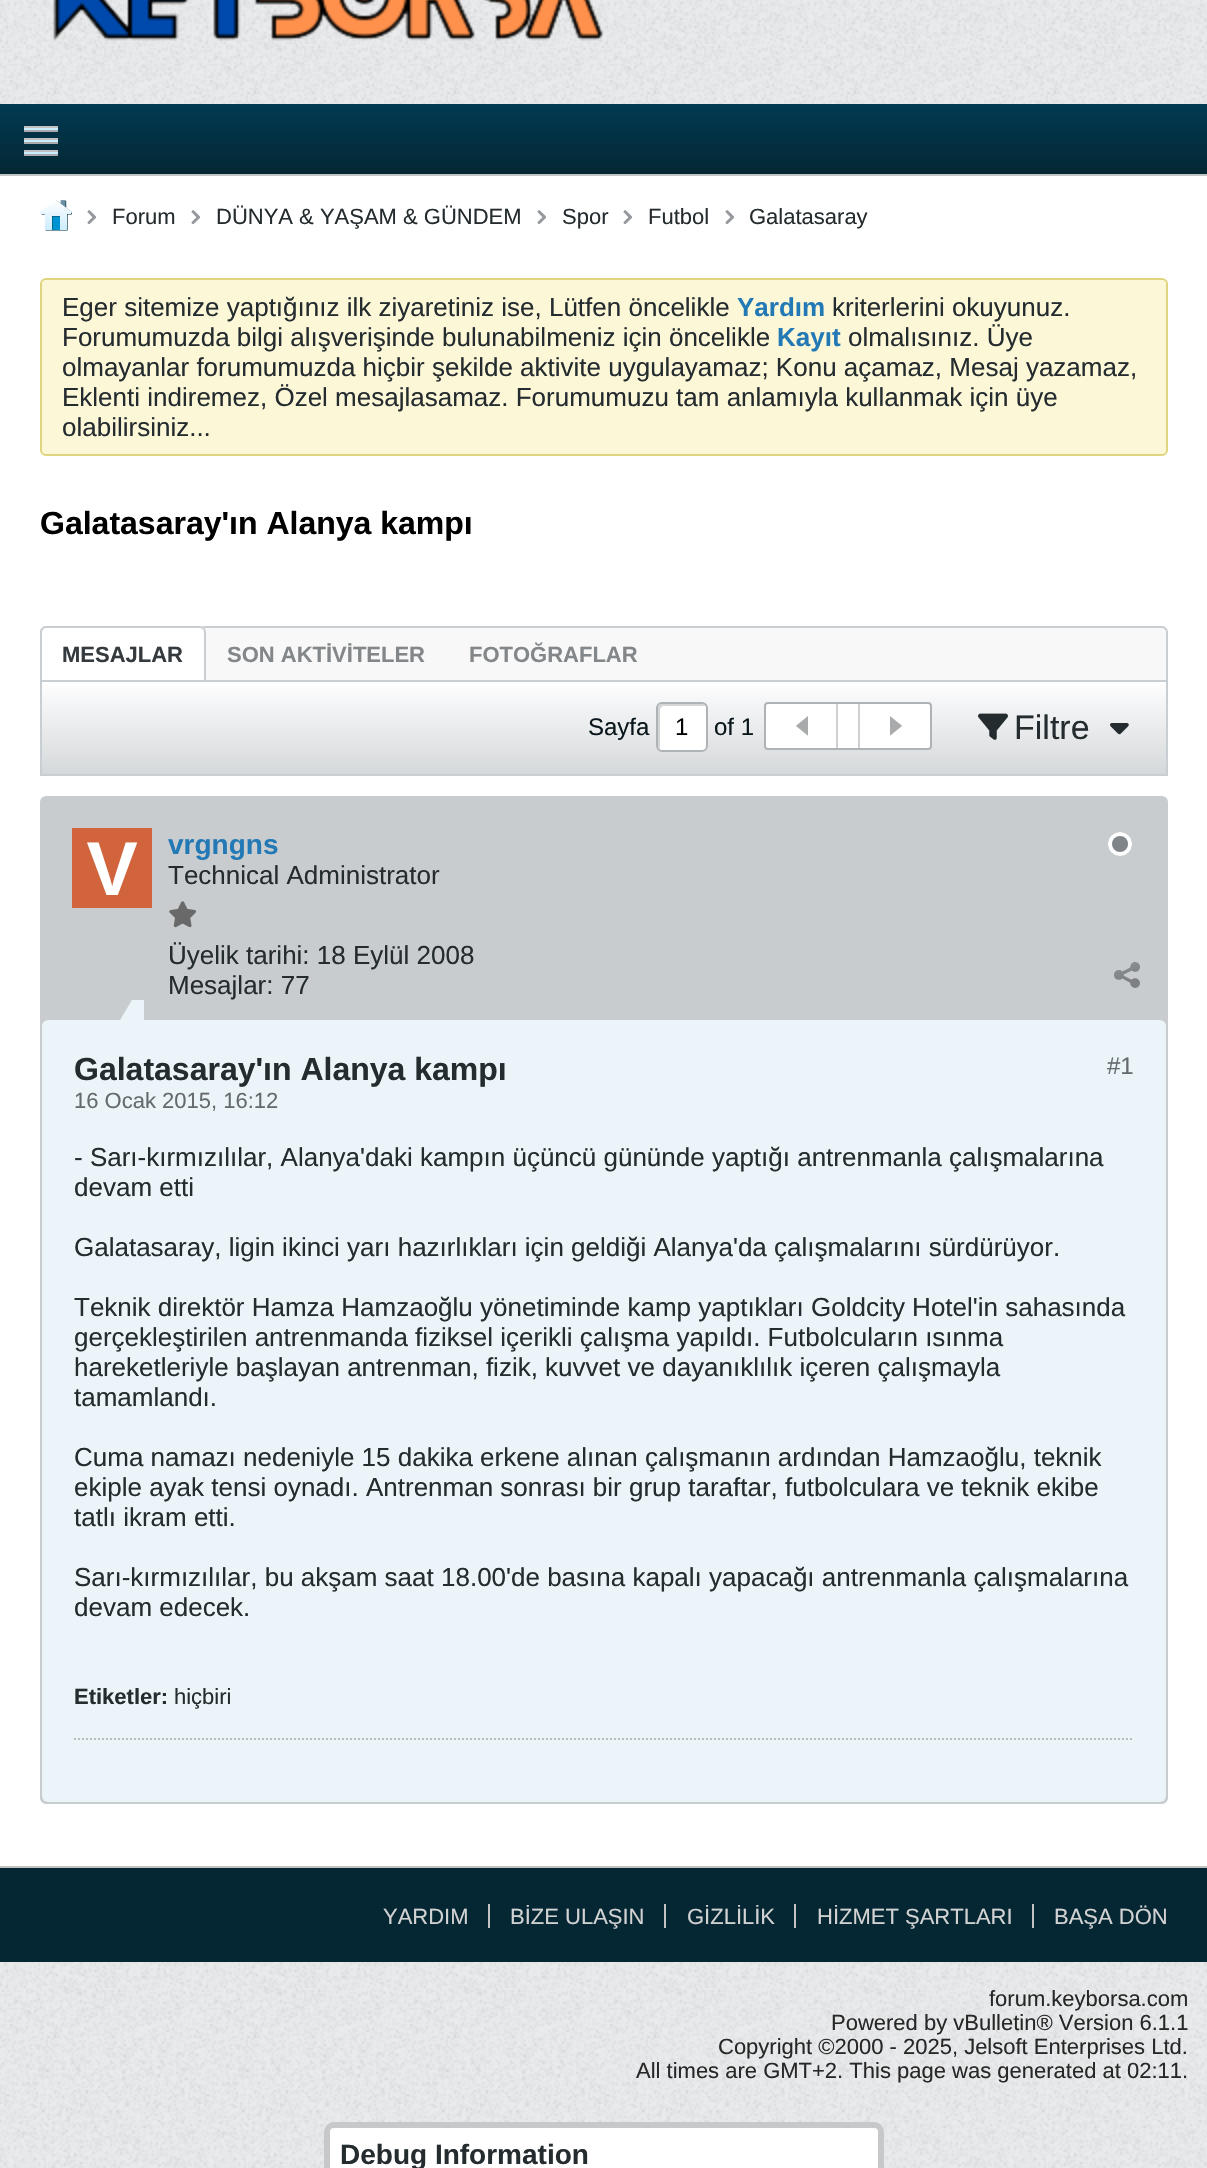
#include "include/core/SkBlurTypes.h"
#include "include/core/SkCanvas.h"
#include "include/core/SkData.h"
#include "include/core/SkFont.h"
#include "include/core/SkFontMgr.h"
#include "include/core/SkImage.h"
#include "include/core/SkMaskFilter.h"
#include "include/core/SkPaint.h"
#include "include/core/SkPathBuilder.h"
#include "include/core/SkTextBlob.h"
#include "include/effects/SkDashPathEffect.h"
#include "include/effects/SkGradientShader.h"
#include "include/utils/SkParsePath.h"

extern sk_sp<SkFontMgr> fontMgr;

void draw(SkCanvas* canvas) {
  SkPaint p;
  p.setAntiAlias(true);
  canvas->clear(SkColorSetRGB(234, 235, 236));
  canvas->drawImageRect(SkImages::DeferredFromEncodedData(SkData::MakeFromFileName("images/1.png")), SkRect::MakeLTRB(0, 1962, 1207, 2168), SkSamplingOptions());
  canvas->drawImageRect(SkImages::DeferredFromEncodedData(SkData::MakeFromFileName("images/2.png")), SkRect::MakeLTRB(0, 0, 1207, 104), SkSamplingOptions());
  canvas->drawImageRect(SkImages::DeferredFromEncodedData(SkData::MakeFromFileName("images/3.png")), SkRect::MakeLTRB(53, 0, 603, 41), SkSamplingOptions());
  {
    const SkColor colors[] = {SkColorSetRGB(1, 58, 84), SkColorSetRGB(5, 39, 51)};
    const float stops[] = {0, 1};
    const SkPoint ends[] = {{604, 104}, {604, 174}};
    p.setShader(SkGradientShader::MakeLinear(ends, colors, stops, 2, SkTileMode::kClamp));
    p.setAlpha(255);
  }
  canvas->drawRect(SkRect::MakeLTRB(0, 104, 1207, 174), p);
  p.setShader(nullptr);
  p.setColor(SkColorSetRGB(196, 199, 200));
  canvas->drawRect(SkRect::MakeLTRB(0, 174, 1207, 176), p);
  canvas->drawImageRect(SkImages::DeferredFromEncodedData(SkData::MakeFromFileName("images/4.png")), SkRect::MakeLTRB(24, 126, 58, 156), SkSamplingOptions());
  p.setColor(SK_ColorWHITE);
  canvas->drawRect(SkRect::MakeLTRB(0, 176, 1207, 1866), p);
  canvas->drawImageRect(SkImages::DeferredFromEncodedData(SkData::MakeFromFileName("images/5.png")), SkRect::MakeLTRB(40, 200, 72, 231), SkSamplingOptions());
  canvas->drawImageRect(SkImages::DeferredFromEncodedData(SkData::MakeFromFileName("images/6.png")), SkRect::MakeLTRB(87, 210, 96, 224), SkSamplingOptions());
  canvas->drawImageRect(SkImages::DeferredFromEncodedData(SkData::MakeFromFileName("images/6.png")), SkRect::MakeLTRB(191, 210, 200, 224), SkSamplingOptions());
  canvas->drawImageRect(SkImages::DeferredFromEncodedData(SkData::MakeFromFileName("images/6.png")), SkRect::MakeLTRB(537, 210, 546, 224), SkSamplingOptions());
  canvas->drawImageRect(SkImages::DeferredFromEncodedData(SkData::MakeFromFileName("images/6.png")), SkRect::MakeLTRB(623, 210, 632, 224), SkSamplingOptions());
  canvas->drawImageRect(SkImages::DeferredFromEncodedData(SkData::MakeFromFileName("images/6.png")), SkRect::MakeLTRB(725, 210, 734, 224), SkSamplingOptions());
  p.setColor(SkColorSetRGB(252, 247, 215));
  canvas->drawRoundRect(SkRect::MakeLTRB(41, 279, 1167, 455), 5, 5, p);
  p.setStyle(SkPaint::kStroke_Style);
  p.setStrokeWidth(2);
  p.setColor(SkColorSetRGB(225, 212, 126));
  canvas->drawRoundRect(SkRect::MakeLTRB(41, 279, 1167, 455), 5, 5, p);
  p.setStyle(SkPaint::kFill_Style);
  p.setColor(SkColorSetRGB(248, 248, 248));
  canvas->drawPath(SkPathBuilder().moveTo(46, 626).lineTo(1162, 626).cubicTo(1165.5f, 626, 1168, 628.5f, 1168, 632).lineTo(1168, 680).lineTo(40, 680).lineTo(40, 632).cubicTo(40, 628.5f, 42.5f, 626, 46, 626).close().detach(), p);
  p.setColor(SkColorSetRGB(201, 206, 210));
  canvas->drawPath(SkPathBuilder(SkPathFillType::kEvenOdd).moveTo(46, 626).lineTo(1162, 626).cubicTo(1165, 626, 1168, 629, 1168, 632).lineTo(1168, 680).lineTo(40, 680).lineTo(40, 632).cubicTo(40, 629, 43, 626, 46, 626).close().moveTo(46, 628).lineTo(1162, 628).cubicTo(1164, 628, 1166, 630, 1166, 632).lineTo(1166, 680).lineTo(42, 680).lineTo(42, 632).cubicTo(42, 630, 44, 628, 46, 628).close().detach(), p);
  p.setColor(SK_ColorWHITE);
  canvas->drawPath(SkPathBuilder().moveTo(46, 626).lineTo(200, 626).cubicTo(203.5f, 626, 206, 628.5f, 206, 632).lineTo(206, 680).lineTo(40, 680).lineTo(40, 632).cubicTo(40, 628.5f, 42.5f, 626, 46, 626).close().detach(), p);
  p.setColor(SkColorSetRGB(201, 206, 210));
  canvas->drawPath(SkPathBuilder(SkPathFillType::kEvenOdd).moveTo(46, 626).lineTo(200, 626).cubicTo(203, 626, 206, 629, 206, 632).lineTo(206, 680).lineTo(40, 680).lineTo(40, 632).cubicTo(40, 629, 43, 626, 46, 626).close().moveTo(46, 628).lineTo(200, 628).cubicTo(202, 628, 204, 630, 204, 632).lineTo(204, 680).lineTo(42, 680).lineTo(42, 632).cubicTo(42, 630, 44, 628, 46, 628).close().detach(), p);
  {
    const SkColor colors[] = {SkColorSetRGB(254, 254, 255), SkColorSetRGB(213, 216, 218)};
    const float stops[] = {0, 1};
    const SkPoint ends[] = {{604, 682}, {604, 774}};
    p.setShader(SkGradientShader::MakeLinear(ends, colors, stops, 2, SkTileMode::kClamp));
    p.setAlpha(255);
  }
  canvas->drawRect(SkRect::MakeLTRB(42, 685, 1166, 774), p);
  p.setStyle(SkPaint::kStroke_Style);
  p.setShader(nullptr);
  p.setColor(SkColorSetRGB(201, 206, 210));
  canvas->drawRect(SkRect::MakeLTRB(41, 681, 1167, 775), p);
  p.setStyle(SkPaint::kFill_Style);
  p.setColor(SK_ColorWHITE);
  canvas->drawRoundRect(SkRect::MakeLTRB(656, 702, 708, 752), 6, 6, p);
  p.setColor(SkColorSetRGB(213, 213, 213));
  canvas->drawPath(SkPathBuilder().moveTo(664, 706).lineTo(704, 706).lineTo(706, 706).cubicTo(705, 705, 704, 704, 702, 704).lineTo(662, 704).cubicTo(660, 704, 658, 706, 658, 708).lineTo(658, 746).cubicTo(658, 748, 659, 749, 660, 750).lineTo(660, 748).lineTo(660, 710).cubicTo(660, 708, 662, 706, 664, 706).close().detach(), p);
  p.setStyle(SkPaint::kStroke_Style);
  p.setColor(SkColorSetRGB(174, 179, 182));
  canvas->drawRoundRect(SkRect::MakeLTRB(657, 703, 707, 751), 5, 5, p);
  p.setStyle(SkPaint::kFill_Style);
  p.setColor(SK_ColorWHITE);
  canvas->drawRoundRect(SkRect::MakeLTRB(765, 703, 931, 749), 3, 3, p);
  p.setStyle(SkPaint::kStroke_Style);
  p.setColor(SkColorSetRGB(174, 179, 182));
  canvas->drawRoundRect(SkRect::MakeLTRB(765, 703, 931, 749), 3, 3, p);
  p.setStyle(SkPaint::kFill_Style);
  p.setColor(SkColorSetRGB(205, 209, 212));
  canvas->drawRect(SkRect::MakeLTRB(836, 704, 838, 748), p);
  canvas->drawImageRect(SkImages::DeferredFromEncodedData(SkData::MakeFromFileName("images/7.png")), SkRect::MakeLTRB(796, 716, 808, 736), SkSamplingOptions());
  canvas->drawRect(SkRect::MakeLTRB(858, 704, 860, 748), p);
  canvas->drawImageRect(SkImages::DeferredFromEncodedData(SkData::MakeFromFileName("images/8.png")), SkRect::MakeLTRB(890, 716, 902, 736), SkSamplingOptions());
  canvas->drawImageRect(SkImages::DeferredFromEncodedData(SkData::MakeFromFileName("images/9.png")), SkRect::MakeLTRB(978, 713, 1008, 740), SkSamplingOptions());
  canvas->drawImageRect(SkImages::DeferredFromEncodedData(SkData::MakeFromFileName("images/10.png")), SkRect::MakeLTRB(1110, 723, 1129, 735), SkSamplingOptions());
  p.setColor(SkColorSetRGB(200, 204, 206));
  canvas->drawRoundRect(SkRect::MakeLTRB(41, 797, 1167, 1803), 5, 5, p);
  p.setStyle(SkPaint::kStroke_Style);
  canvas->drawRoundRect(SkRect::MakeLTRB(41, 797, 1167, 1803), 5, 5, p);
  canvas->drawImageRect(SkImages::DeferredFromEncodedData(SkData::MakeFromFileName("images/11.png")), SkRect::MakeLTRB(72, 828, 152, 908), SkSamplingOptions());
  canvas->drawImageRect(SkImages::DeferredFromEncodedData(SkData::MakeFromFileName("images/12.png")), SkRect::MakeLTRB(169, 901, 196, 928), SkSamplingOptions());
  canvas->drawImageRect(SkImages::DeferredFromEncodedData(SkData::MakeFromFileName("images/13.png")), SkRect::MakeLTRB(1108, 832, 1132, 856), SkSamplingOptions());
  canvas->drawImageRect(SkImages::DeferredFromEncodedData(SkData::MakeFromFileName("images/14.png")), SkRect::MakeLTRB(1114, 962, 1140, 988), SkSamplingOptions());
  p.setStyle(SkPaint::kFill_Style);
  p.setColor(SkColorSetRGB(235, 244, 249));
  canvas->drawRoundRect(SkRect::MakeLTRB(42, 1020, 1166, 1802), 6, 6, p);
  canvas->drawRect(SkRect::MakeLTRB(132, 1000, 144, 1020), p);
  canvas->drawPath(SkPathBuilder().moveTo(144, 1020).lineTo(120, 1020).lineTo(132, 1000).close().detach(), p);
  p.setStyle(SkPaint::kStroke_Style);
  p.setColor(SkColorSetRGB(183, 188, 190));
  p.setPathEffect(SkDashPathEffect::Make({{2, 2}}, 0));
  canvas->drawPath(SkPathBuilder().moveTo(74, 1739).lineTo(1134, 1739).detach(), p);
  p.setPathEffect(nullptr);
  p.setStyle(SkPaint::kFill_Style);
  p.setColor(SkColorSetRGB(5, 39, 51));
  canvas->drawRect(SkRect::MakeLTRB(0, 1868, 1207, 1962), p);
  p.setColor(SkColorSetRGB(194, 194, 194));
  canvas->drawRect(SkRect::MakeLTRB(0, 1866, 1207, 1868), p);
  canvas->drawRect(SkRect::MakeLTRB(488, 1904, 490, 1928), p);
  canvas->drawRect(SkRect::MakeLTRB(664, 1904, 666, 1928), p);
  canvas->drawRect(SkRect::MakeLTRB(794, 1904, 796, 1928), p);
  canvas->drawRect(SkRect::MakeLTRB(1032, 1904, 1034, 1928), p);
  p.setColor(SK_ColorWHITE);
  canvas->drawRoundRect(SkRect::MakeLTRB(327, 2125, 881, 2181), 7, 7, p);
  p.setStyle(SkPaint::kStroke_Style);
  p.setStrokeWidth(6);
  p.setColor(SkColorSetRGB(199, 200, 201));
  canvas->drawRoundRect(SkRect::MakeLTRB(327, 2125, 881, 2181), 7, 7, p);
  SkFont font1(fontMgr->matchFamilyStyle("Liberation Sans", SkFontStyle::Normal()), 22);
  font1.setSubpixel(true);
  p.setStyle(SkPaint::kFill_Style);
  p.setColor(SkColorSetRGB(37, 44, 47));
  canvas->drawString("Forum", 112, 224, font1, p);
  canvas->drawString("DÜNYA & YAŞAM & GÜNDEM", 216, 224, font1, p);
  canvas->drawString("Spor", 562, 224, font1, p);
  canvas->drawString("Futbol", 648, 224, font1, p);
  canvas->drawString("Galatasaray", 749, 224, font1, p);
  SkFont font2(fontMgr->matchFamilyStyle("Liberation Sans", SkFontStyle::Normal()), 26);
  font2.setSubpixel(true);
  canvas->drawString("Eger sitemize yaptığınız ilk ziyaretiniz ise, Lütfen öncelikle", 62, 316, font2, p);
  SkFont font3(fontMgr->matchFamilyStyle("Liberation Sans", SkFontStyle::Bold()), 26);
  font3.setSubpixel(true);
  p.setColor(SkColorSetRGB(35, 121, 181));
  canvas->drawString("Yardım", 737, 316, font3, p);
  p.setColor(SkColorSetRGB(37, 44, 47));
  canvas->drawString("kriterlerini okuyunuz.", 832, 316, font2, p);
  canvas->drawString("Forumumuzda bilgi alışverişinde bulunabilmeniz için öncelikle", 62, 346, font2, p);
  p.setColor(SkColorSetRGB(35, 121, 181));
  canvas->drawString("Kayıt", 777, 346, font3, p);
  p.setColor(SkColorSetRGB(37, 44, 47));
  canvas->drawString("olmalısınız. Üye", 848, 346, font2, p);
  canvas->drawString("olmayanlar forumumuzda hiçbir şekilde aktivite uygulayamaz; Konu açamaz, Mesaj yazamaz,", 62, 376, font2, p);
  canvas->drawString("Eklenti indiremez, Özel mesajlasamaz. Forumumuzu tam anlamıyla kullanmak için üye", 62, 406, font2, p);
  canvas->drawString("olabilirsiniz...", 62, 436, font2, p);
  SkFont font4(fontMgr->matchFamilyStyle("Liberation Sans", SkFontStyle::Bold()), 32);
  font4.setSubpixel(true);
  p.setColor(SK_ColorBLACK);
  canvas->drawString("Galatasaray'ın Alanya kampı", 40, 534, font4, p);
  SkFont font5(fontMgr->matchFamilyStyle("Liberation Sans", SkFontStyle::Bold()), 22);
  font5.setSubpixel(true);
  p.setColor(SkColorSetRGB(52, 58, 61));
  canvas->drawString("MESAJLAR", 62, 662, font5, p);
  p.setColor(SkColorSetRGB(131, 135, 137));
  canvas->drawString("SON AKTİVİTELER", 227, 662, font5, p);
  canvas->drawString("FOTOĞRAFLAR", 469, 662, font5, p);
  SkFont font6(fontMgr->matchFamilyStyle("Liberation Sans", SkFontStyle::Normal()), 24);
  font6.setSubpixel(true);
  p.setColor(SkColorSetRGB(9, 22, 27));
  canvas->drawString("Sayfa", 588, 735, font6, p);
  p.setColor(SK_ColorBLACK);
  canvas->drawString("1", 675, 735, font6, p);
  p.setColor(SkColorSetRGB(9, 22, 27));
  canvas->drawString("of 1", 714, 735, font6, p);
  SkFont font7(fontMgr->matchFamilyStyle("Liberation Sans", SkFontStyle::Normal()), 34);
  font7.setSubpixel(true);
  p.setColor(SkColorSetRGB(37, 44, 47));
  canvas->drawString("Filtre", 1014, 739, font7, p);
  SkFont font8(fontMgr->matchFamilyStyle("Liberation Sans", SkFontStyle::Bold()), 28);
  font8.setSubpixel(true);
  p.setColor(SkColorSetRGB(35, 121, 181));
  canvas->drawString("vrgngns", 168, 854, font8, p);
  p.setColor(SkColorSetRGB(37, 44, 47));
  canvas->drawString("Technical Administrator", 168, 884, font2, p);
  canvas->drawString("Üyelik tarihi: 18 Eylül 2008", 168, 964, font2, p);
  canvas->drawString("Mesajlar: 77", 168, 994, font2, p);
  canvas->drawString("Galatasaray'ın Alanya kampı", 74, 1080, font4, p);
  p.setColor(SkColorSetRGB(101, 106, 109));
  canvas->drawString("16 Ocak 2015, 16:12", 74, 1108, font1, p);
  canvas->drawString("#1", 1107, 1074, font6, p);
  p.setColor(SkColorSetRGB(37, 44, 47));
  canvas->drawString("- Sarı-kırmızılılar, Alanya'daki kampın üçüncü gününde yaptığı antrenmanla çalışmalarına", 74, 1166, font2, p);
  canvas->drawString("devam etti", 74, 1196, font2, p);
  canvas->drawString("Galatasaray, ligin ikinci yarı hazırlıkları için geldiği Alanya'da çalışmalarını sürdürüyor.", 74, 1256, font2, p);
  canvas->drawString("Teknik direktör Hamza Hamzaoğlu yönetiminde kamp yaptıkları Goldcity Hotel'in sahasında", 74, 1316, font2, p);
  canvas->drawString("gerçekleştirilen antrenmanda fiziksel içerikli çalışma yapıldı. Futbolcuların ısınma", 74, 1346, font2, p);
  canvas->drawString("hareketleriyle başlayan antrenman, fizik, kuvvet ve dayanıklılık içeren çalışmayla", 74, 1376, font2, p);
  canvas->drawString("tamamlandı.", 74, 1406, font2, p);
  canvas->drawString("Cuma namazı nedeniyle 15 dakika erkene alınan çalışmanın ardından Hamzaoğlu, teknik", 74, 1466, font2, p);
  canvas->drawString("ekiple ayak tensi oynadı. Antrenman sonrası bir grup taraftar, futbolculara ve teknik ekibe", 74, 1496, font2, p);
  canvas->drawString("tatlı ikram etti.", 74, 1526, font2, p);
  canvas->drawString("Sarı-kırmızılılar, bu akşam saat 18.00'de basına kapalı yapacağı antrenmanla çalışmalarına", 74, 1586, font2, p);
  canvas->drawString("devam edecek.", 74, 1616, font2, p);
  canvas->drawString("Etiketler:", 74, 1704, font5, p);
  canvas->drawString("hiçbiri", 174, 1704, font1, p);
  p.setColor(SkColorSetRGB(210, 210, 210));
  canvas->drawString("YARDIM", 383, 1924, font1, p);
  canvas->drawString("BİZE ULAŞIN", 510, 1924, font1, p);
  canvas->drawString("GİZLİLİK", 687, 1924, font1, p);
  canvas->drawString("HİZMET ŞARTLARI", 817, 1924, font1, p);
  canvas->drawString("BAŞA DÖN", 1054, 1924, font1, p);
  p.setColor(SkColorSetRGB(39, 39, 39));
  canvas->drawString("forum.keyborsa.com", 989, 2006, font1, p);
  canvas->drawString("Powered by vBulletin® Version 6.1.1", 831, 2030, font1, p);
  canvas->drawString("Copyright ©2000 - 2025, Jelsoft Enterprises Ltd.", 718, 2054, font1, p);
  canvas->drawString("All times are GMT+2. This page was generated at 02:11.", 636, 2078, font1, p);
  p.setColor(SkColorSetRGB(37, 44, 47));
  canvas->drawString("Debug Information", 340, 2164, font8, p);
}
